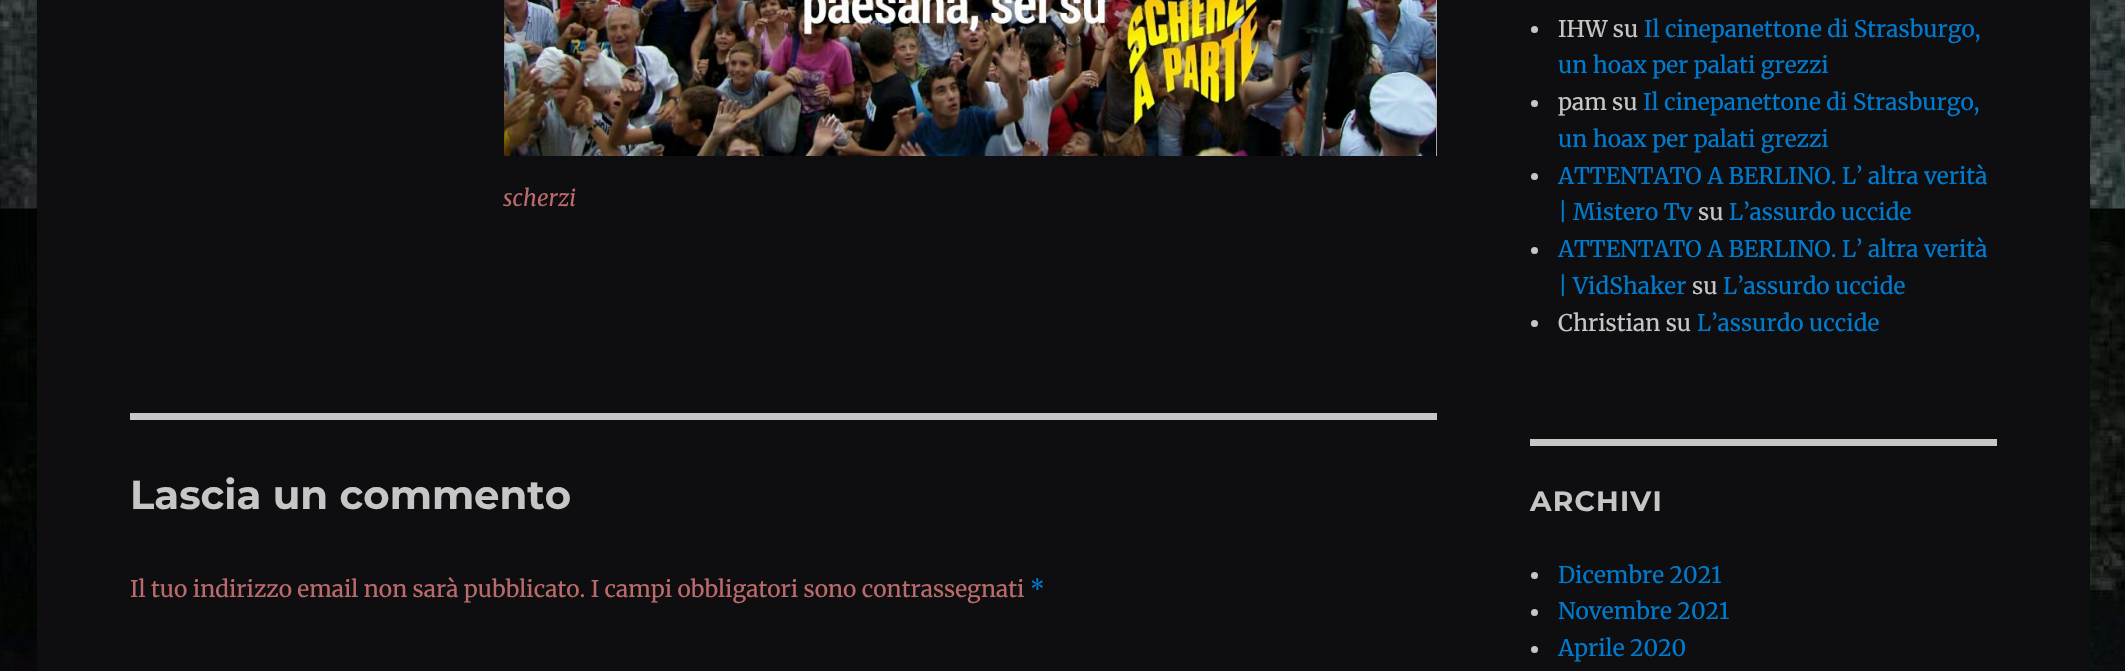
#include "include/core/SkBlurTypes.h"
#include "include/core/SkCanvas.h"
#include "include/core/SkData.h"
#include "include/core/SkFont.h"
#include "include/core/SkFontMgr.h"
#include "include/core/SkImage.h"
#include "include/core/SkMaskFilter.h"
#include "include/core/SkPaint.h"
#include "include/core/SkPathBuilder.h"
#include "include/core/SkTextBlob.h"
#include "include/effects/SkDashPathEffect.h"
#include "include/effects/SkGradientShader.h"
#include "include/utils/SkParsePath.h"

extern sk_sp<SkFontMgr> fontMgr;

void draw(SkCanvas* canvas) {
  SkPaint p;
  p.setAntiAlias(true);
  auto spacedText = [&](const char* s, float x, float y, const SkFont& font, const SkPaint& ink, float letter, float word) {
    std::vector<SkGlyphID> glyphs(font.countText(s, strlen(s), SkTextEncoding::kUTF8));
    std::vector<float> xs(glyphs.size());
    font.textToGlyphs(s, strlen(s), SkTextEncoding::kUTF8, glyphs);
    font.getXPos(glyphs, xs, x);
    float extra = 0;
    for (size_t i = 0; i < glyphs.size(); i++) {
      xs[i] += extra;
      extra += letter + word * (glyphs[i] == font.unicharToGlyph(' '));
    }
    canvas->drawTextBlob(SkTextBlob::MakeFromPosHGlyphs(glyphs, xs, y, font), 0, 0, ink);
  };
  canvas->clear(SK_ColorWHITE);
  canvas->drawImageRect(SkImages::DeferredFromEncodedData(SkData::MakeFromFileName("images/1.png")), SkRect::MakeLTRB(0, 0, 2125, 671), SkSamplingOptions());
  p.setColor(SkColorSetRGB(14, 13, 15));
  canvas->drawRect(SkRect::MakeLTRB(37, 0, 2090, 671), p);
  canvas->drawImageRect(SkImages::DeferredFromEncodedData(SkData::MakeFromFileName("images/2.png")), SkRect::MakeLTRB(504, 0, 1437, 156), SkSamplingOptions());
  p.setColor(SkColorSetRGB(198, 198, 198));
  canvas->drawRect(SkRect::MakeLTRB(130, 413, 1437, 420), p);
  canvas->drawCircle(1534.5f, 29.5f, 3.5f, p);
  canvas->drawCircle(1534.5f, 103.5f, 3.5f, p);
  canvas->drawCircle(1534.5f, 176.5f, 3.5f, p);
  canvas->drawCircle(1534.5f, 250.5f, 3.5f, p);
  canvas->drawCircle(1534.5f, 323.5f, 3.5f, p);
  canvas->drawRect(SkRect::MakeLTRB(1530, 439, 1997, 446), p);
  canvas->drawCircle(1534.5f, 575.5f, 3.5f, p);
  canvas->drawCircle(1534.5f, 612.5f, 3.5f, p);
  canvas->drawCircle(1534.5f, 649.5f, 3.5f, p);
  SkFont font1(fontMgr->matchFamilyStyle("Merriweather", SkFontStyle::Italic()), 22.75f);
  font1.setSubpixel(true);
  p.setColor(SkColorSetRGB(186, 106, 106));
  canvas->drawString("scherzi", 503, 206, font1, p);
  SkFont font2(fontMgr->matchFamilyStyle("Montserrat", SkFontStyle::Bold()), 40.25f);
  font2.setSubpixel(true);
  p.setColor(SkColorSetRGB(198, 198, 198));
  canvas->drawString("Lascia un commento", 130, 509, font2, p);
  SkFont font3(fontMgr->matchFamilyStyle("Merriweather", SkFontStyle::Normal()), 22.75f);
  font3.setSubpixel(true);
  p.setColor(SkColorSetRGB(186, 106, 106));
  canvas->drawString("Il tuo indirizzo email non sarà pubblicato. I campi obbligatori sono contrassegnati", 130, 597, font3, p);
  p.setColor(SkColorSetRGB(0, 122, 204));
  canvas->drawString("*", 1030, 597, font3, p);
  p.setColor(SkColorSetRGB(198, 198, 198));
  canvas->drawString("IHW su", 1558, 37, font3, p);
  p.setColor(SkColorSetRGB(0, 122, 204));
  canvas->drawString("Il cinepanettone di Strasburgo,", 1644, 37, font3, p);
  canvas->drawString("un hoax per palati grezzi", 1558, 73, font3, p);
  p.setColor(SkColorSetRGB(198, 198, 198));
  canvas->drawString("pam su", 1558, 110, font3, p);
  p.setColor(SkColorSetRGB(0, 122, 204));
  canvas->drawString("Il cinepanettone di Strasburgo,", 1643, 110, font3, p);
  canvas->drawString("un hoax per palati grezzi", 1558, 147, font3, p);
  canvas->drawString("ATTENTATO A BERLINO. L’ altra verità", 1558, 184, font3, p);
  canvas->drawString("| Mistero Tv", 1558, 220, font3, p);
  p.setColor(SkColorSetRGB(198, 198, 198));
  canvas->drawString("su", 1698, 220, font3, p);
  p.setColor(SkColorSetRGB(0, 122, 204));
  canvas->drawString("L’assurdo uccide", 1729, 220, font3, p);
  canvas->drawString("ATTENTATO A BERLINO. L’ altra verità", 1558, 257, font3, p);
  canvas->drawString("| VidShaker", 1558, 294, font3, p);
  p.setColor(SkColorSetRGB(198, 198, 198));
  canvas->drawString("su", 1692, 294, font3, p);
  p.setColor(SkColorSetRGB(0, 122, 204));
  canvas->drawString("L’assurdo uccide", 1723, 294, font3, p);
  p.setColor(SkColorSetRGB(198, 198, 198));
  canvas->drawString("Christian su", 1558, 331, font3, p);
  p.setColor(SkColorSetRGB(0, 122, 204));
  canvas->drawString("L’assurdo uccide", 1697, 331, font3, p);
  SkFont font4(fontMgr->matchFamilyStyle("Montserrat", SkFontStyle::Bold()), 28);
  font4.setSubpixel(true);
  p.setColor(SkColorSetRGB(198, 198, 198));
  spacedText("ARCHIVI", 1530, 511, font4, p, 1.25f, 0);
  p.setColor(SkColorSetRGB(0, 122, 204));
  canvas->drawString("Dicembre 2021", 1558, 583, font3, p);
  canvas->drawString("Novembre 2021", 1558, 619, font3, p);
  canvas->drawString("Aprile 2020", 1558, 656, font3, p);
}
